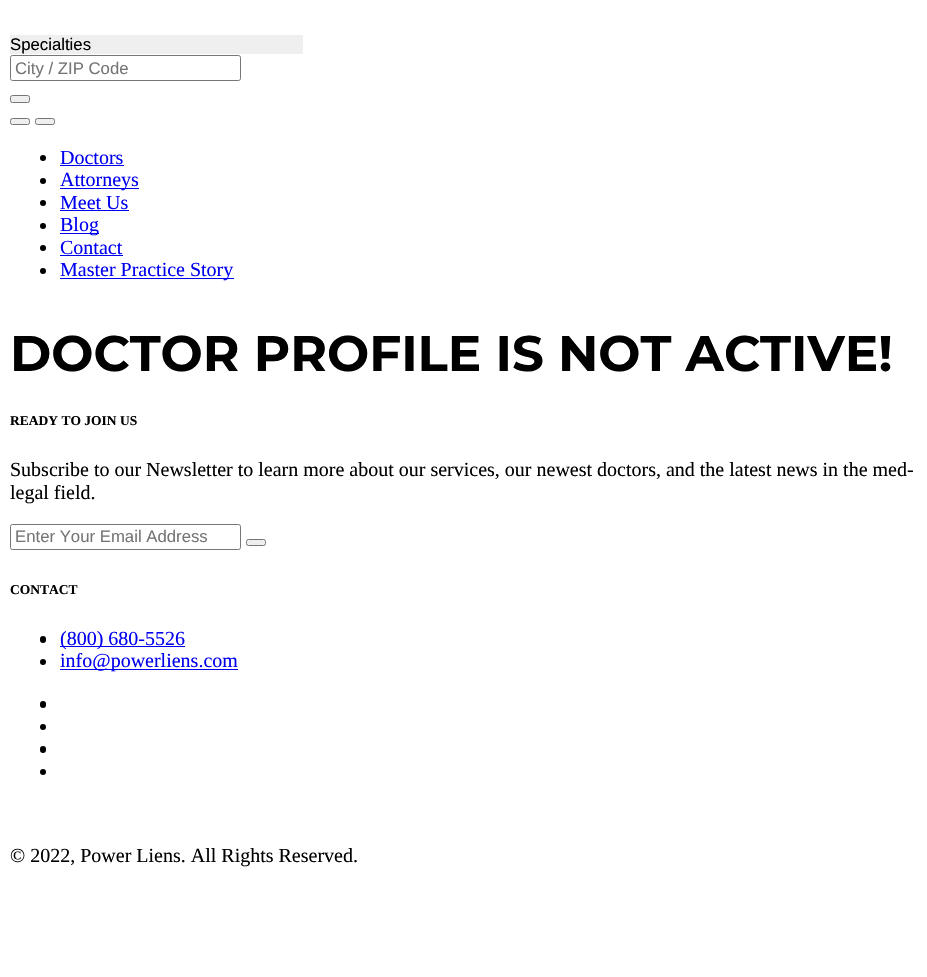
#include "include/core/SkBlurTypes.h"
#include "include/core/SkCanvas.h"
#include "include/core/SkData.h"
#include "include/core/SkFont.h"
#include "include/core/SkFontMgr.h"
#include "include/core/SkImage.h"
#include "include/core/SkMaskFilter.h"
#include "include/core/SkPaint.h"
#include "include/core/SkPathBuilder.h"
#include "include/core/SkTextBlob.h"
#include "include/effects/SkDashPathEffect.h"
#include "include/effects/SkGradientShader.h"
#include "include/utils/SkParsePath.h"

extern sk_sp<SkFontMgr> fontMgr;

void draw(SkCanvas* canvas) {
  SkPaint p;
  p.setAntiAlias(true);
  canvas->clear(SK_ColorWHITE);
  p.setColor(SkColorSetRGB(239, 239, 239));
  canvas->drawRect(SkRect::MakeLTRB(10, 35, 303, 54), p);
  p.setStyle(SkPaint::kStroke_Style);
  p.setStrokeWidth(1);
  p.setColor(SkColorSetRGB(118, 118, 118));
  canvas->drawRoundRect(SkRect::MakeLTRB(10.5f, 55.5f, 240.5f, 80.5f), 2, 2, p);
  p.setStyle(SkPaint::kFill_Style);
  p.setColor(SkColorSetRGB(239, 239, 239));
  canvas->drawRoundRect(SkRect::MakeLTRB(10.5f, 95.5f, 29.5f, 102.5f), 2, 2, p);
  p.setStyle(SkPaint::kStroke_Style);
  p.setColor(SkColorSetRGB(118, 118, 118));
  canvas->drawRoundRect(SkRect::MakeLTRB(10.5f, 95.5f, 29.5f, 102.5f), 2, 2, p);
  p.setStyle(SkPaint::kFill_Style);
  p.setColor(SkColorSetRGB(239, 239, 239));
  canvas->drawRoundRect(SkRect::MakeLTRB(10.5f, 118.5f, 29.5f, 124.5f), 2, 2, p);
  p.setStyle(SkPaint::kStroke_Style);
  p.setColor(SkColorSetRGB(118, 118, 118));
  canvas->drawRoundRect(SkRect::MakeLTRB(10.5f, 118.5f, 29.5f, 124.5f), 2, 2, p);
  p.setStyle(SkPaint::kFill_Style);
  p.setColor(SkColorSetRGB(239, 239, 239));
  canvas->drawRoundRect(SkRect::MakeLTRB(35.5f, 118.5f, 54.5f, 124.5f), 2, 2, p);
  p.setStyle(SkPaint::kStroke_Style);
  p.setColor(SkColorSetRGB(118, 118, 118));
  canvas->drawRoundRect(SkRect::MakeLTRB(35.5f, 118.5f, 54.5f, 124.5f), 2, 2, p);
  p.setStyle(SkPaint::kFill_Style);
  p.setColor(SK_ColorBLACK);
  canvas->drawCircle(43, 158, 3, p);
  p.setColor(SkColorSetRGB(0, 0, 238));
  canvas->drawRect(SkRect::MakeLTRB(60, 165, 124, 166), p);
  p.setColor(SK_ColorBLACK);
  canvas->drawCircle(43, 181, 3, p);
  p.setColor(SkColorSetRGB(0, 0, 238));
  canvas->drawRect(SkRect::MakeLTRB(60, 188, 139, 189), p);
  p.setColor(SK_ColorBLACK);
  canvas->drawCircle(43, 203, 3, p);
  p.setColor(SkColorSetRGB(0, 0, 238));
  canvas->drawRect(SkRect::MakeLTRB(60, 210, 129, 211), p);
  p.setColor(SK_ColorBLACK);
  canvas->drawCircle(43, 226, 3, p);
  p.setColor(SkColorSetRGB(0, 0, 238));
  canvas->drawRect(SkRect::MakeLTRB(60, 233, 99, 234), p);
  p.setColor(SK_ColorBLACK);
  canvas->drawCircle(43, 248, 3, p);
  p.setColor(SkColorSetRGB(0, 0, 238));
  canvas->drawRect(SkRect::MakeLTRB(60, 255, 123, 256), p);
  p.setColor(SK_ColorBLACK);
  canvas->drawCircle(43, 271, 3, p);
  p.setColor(SkColorSetRGB(0, 0, 238));
  canvas->drawRect(SkRect::MakeLTRB(60, 278, 234, 279), p);
  p.setStyle(SkPaint::kStroke_Style);
  p.setColor(SkColorSetRGB(118, 118, 118));
  canvas->drawRoundRect(SkRect::MakeLTRB(10.5f, 524.5f, 240.5f, 549.5f), 2, 2, p);
  p.setStyle(SkPaint::kFill_Style);
  p.setColor(SkColorSetRGB(239, 239, 239));
  canvas->drawRoundRect(SkRect::MakeLTRB(246.5f, 539.5f, 265.5f, 545.5f), 2, 2, p);
  p.setStyle(SkPaint::kStroke_Style);
  p.setColor(SkColorSetRGB(118, 118, 118));
  canvas->drawRoundRect(SkRect::MakeLTRB(246.5f, 539.5f, 265.5f, 545.5f), 2, 2, p);
  p.setStyle(SkPaint::kFill_Style);
  p.setColor(SK_ColorBLACK);
  canvas->drawRoundRect(SkRect::MakeLTRB(40, 636, 46, 643), 3, 3, p);
  p.setColor(SkColorSetRGB(0, 0, 238));
  canvas->drawRect(SkRect::MakeLTRB(60, 646, 185, 647), p);
  p.setColor(SK_ColorBLACK);
  canvas->drawCircle(43, 662, 3, p);
  p.setColor(SkColorSetRGB(0, 0, 238));
  canvas->drawRect(SkRect::MakeLTRB(60, 669, 238, 670), p);
  p.setColor(SK_ColorBLACK);
  canvas->drawRoundRect(SkRect::MakeLTRB(40, 701, 46, 708), 3, 3, p);
  canvas->drawCircle(43, 727, 3, p);
  canvas->drawRoundRect(SkRect::MakeLTRB(40, 746, 46, 753), 3, 3, p);
  canvas->drawCircle(43, 772, 3, p);
  SkFont font1(fontMgr->matchFamilyStyle("Liberation Sans", SkFontStyle::Normal()), 16.75f);
  font1.setSubpixel(true);
  canvas->drawString("Specialties", 10, 50, font1, p);
  p.setColor(SkColorSetRGB(117, 117, 117));
  canvas->drawString("City / ZIP Code", 15, 74, font1, p);
  SkFont font2(fontMgr->matchFamilyStyle("Liberation Serif", SkFontStyle::Normal()), 20);
  font2.setSubpixel(true);
  p.setColor(SkColorSetRGB(0, 0, 238));
  canvas->drawString("Doctors", 60, 164, font2, p);
  canvas->drawString("Attorneys", 60, 186, font2, p);
  canvas->drawString("Meet Us", 60, 209, font2, p);
  canvas->drawString("Blog", 60, 231, font2, p);
  canvas->drawString("Contact", 60, 254, font2, p);
  canvas->drawString("Master Practice Story", 60, 276, font2, p);
  SkFont font3(fontMgr->matchFamilyStyle("Montserrat", SkFontStyle::Bold()), 50);
  font3.setSubpixel(true);
  p.setColor(SK_ColorBLACK);
  canvas->drawString("DOCTOR PROFILE IS NOT ACTIVE!", 10, 371, font3, p);
  SkFont font4(fontMgr->matchFamilyStyle("Liberation Serif", SkFontStyle::Bold()), 13.5f);
  font4.setSubpixel(true);
  canvas->drawString("READY TO JOIN US", 10, 425, font4, p);
  canvas->drawString("Subscribe to our Newsletter to learn more about our services, our newest doctors, and the latest news in the med-", 10, 476, font2, p);
  canvas->drawString("legal field.", 10, 499, font2, p);
  p.setColor(SkColorSetRGB(117, 117, 117));
  canvas->drawString("Enter Your Email Address", 15, 542, font1, p);
  p.setColor(SK_ColorBLACK);
  canvas->drawString("CONTACT", 10, 594, font4, p);
  p.setColor(SkColorSetRGB(0, 0, 238));
  canvas->drawString("(800) 680-5526", 60, 645, font2, p);
  canvas->drawString("info@powerliens.com", 60, 667, font2, p);
  p.setColor(SK_ColorBLACK);
  canvas->drawString("© 2022, Power Liens. All Rights Reserved.", 10, 862, font2, p);
}
